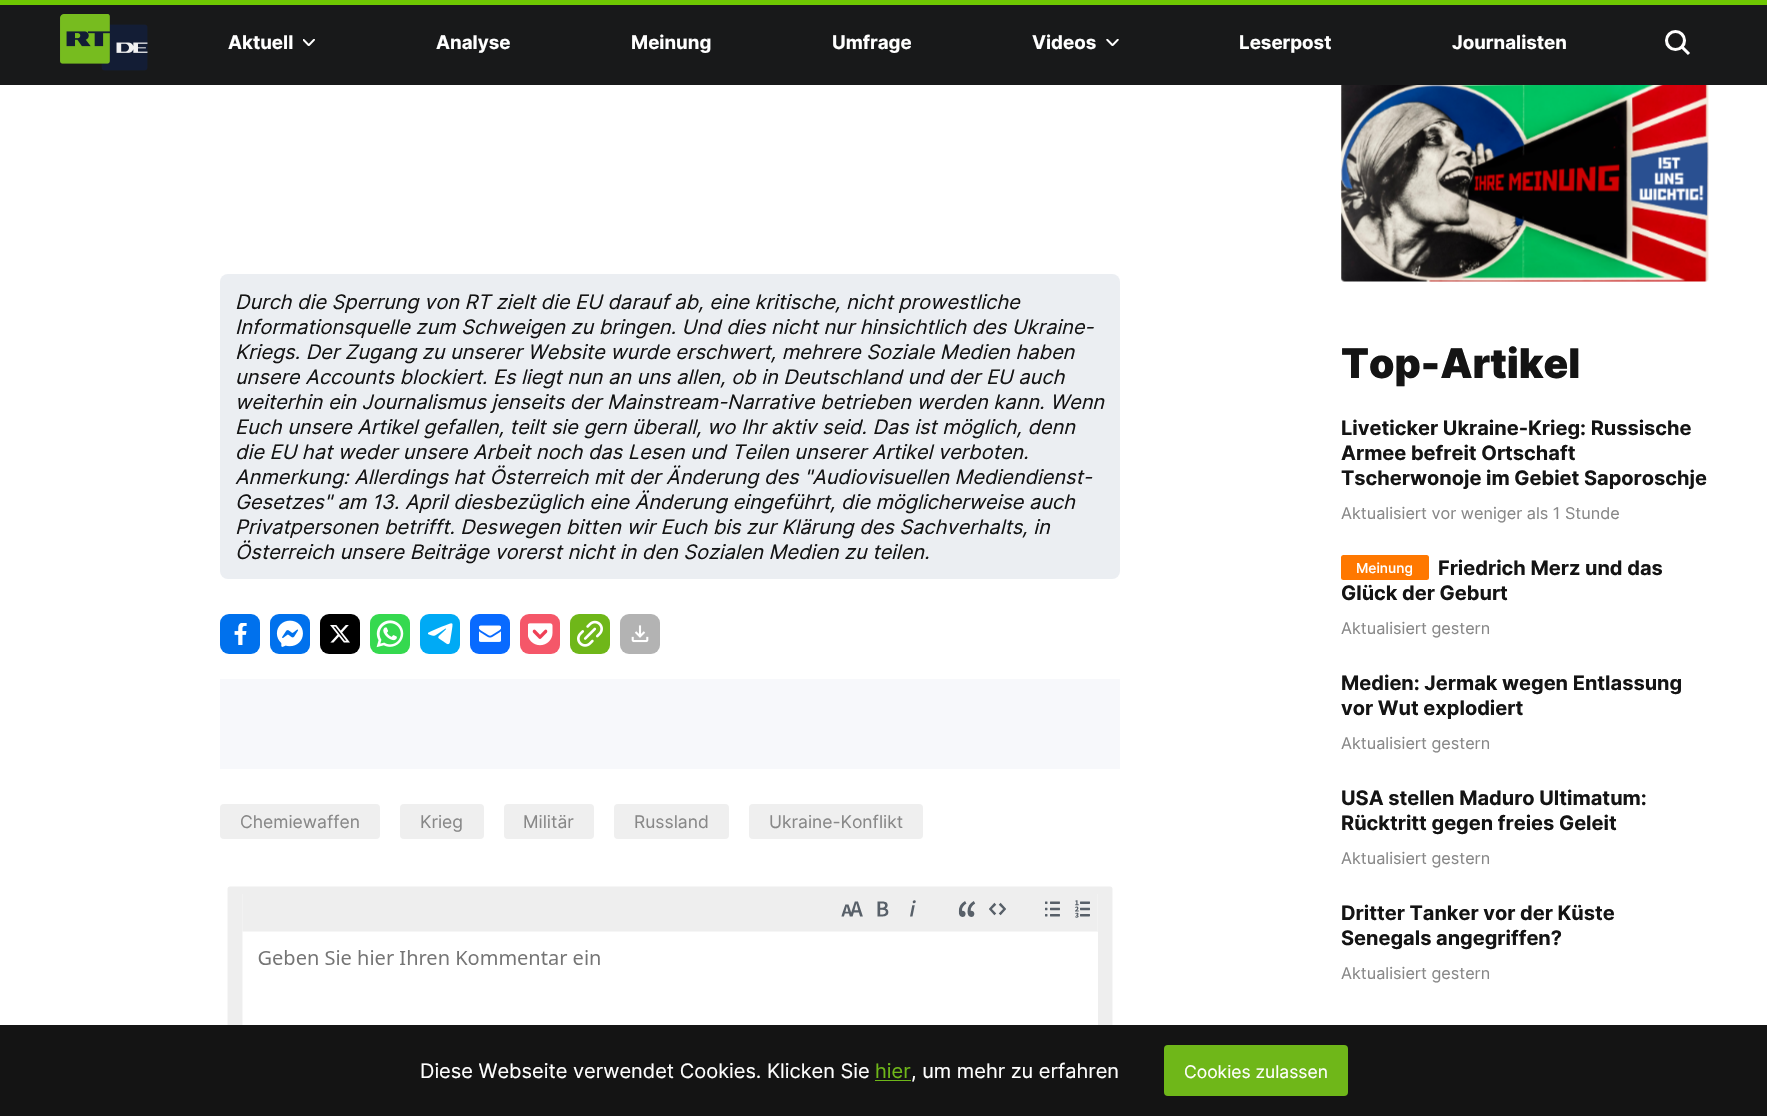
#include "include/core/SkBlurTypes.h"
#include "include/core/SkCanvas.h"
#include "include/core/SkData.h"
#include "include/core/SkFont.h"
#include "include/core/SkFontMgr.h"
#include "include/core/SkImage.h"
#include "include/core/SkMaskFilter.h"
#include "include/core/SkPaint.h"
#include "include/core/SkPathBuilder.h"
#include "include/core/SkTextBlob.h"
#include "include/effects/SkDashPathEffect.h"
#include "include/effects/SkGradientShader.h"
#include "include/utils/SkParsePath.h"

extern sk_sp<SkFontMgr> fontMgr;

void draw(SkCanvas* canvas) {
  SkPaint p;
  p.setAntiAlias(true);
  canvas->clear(SK_ColorWHITE);
  p.setColor(SkColorSetRGB(110, 199, 2));
  canvas->drawRect(SkRect::MakeLTRB(0, 0, 1767, 5), p);
  p.setColor(SkColorSetRGB(24, 25, 26));
  canvas->drawRect(SkRect::MakeLTRB(0, 5, 1767, 85), p);
  canvas->drawImageRect(SkImages::DeferredFromEncodedData(SkData::MakeFromFileName("images/1.png")), SkRect::MakeLTRB(60, 14, 148, 71), SkSamplingOptions());
  canvas->drawImageRect(SkImages::DeferredFromEncodedData(SkData::MakeFromFileName("images/2.png")), SkRect::MakeLTRB(303, 39, 315, 46), SkSamplingOptions());
  canvas->drawImageRect(SkImages::DeferredFromEncodedData(SkData::MakeFromFileName("images/3.png")), SkRect::MakeLTRB(1106, 39, 1119, 46), SkSamplingOptions());
  p.setStyle(SkPaint::kStroke_Style);
  p.setStrokeWidth(3.1f);
  p.setColor(SK_ColorWHITE);
  canvas->drawCircle(1675.5f, 40.5f, 9, p);
  canvas->drawPath(SkPathBuilder().moveTo(1682, 47).lineTo(1689, 54).detach(), p);
  p.setStyle(SkPaint::kFill_Style);
  p.setColor(SkColorSetRGB(235, 238, 242));
  canvas->drawRoundRect(SkRect::MakeLTRB(220, 274, 1120, 579), 8, 8, p);
  p.setColor(SkColorSetRGB(0, 113, 237));
  canvas->drawRoundRect(SkRect::MakeLTRB(220, 614, 260, 654), 9, 9, p);
  canvas->drawImageRect(SkImages::DeferredFromEncodedData(SkData::MakeFromFileName("images/4.png")), SkRect::MakeLTRB(234, 623, 247, 645), SkSamplingOptions());
  canvas->drawRoundRect(SkRect::MakeLTRB(270, 614, 310, 654), 9, 9, p);
  canvas->drawImageRect(SkImages::DeferredFromEncodedData(SkData::MakeFromFileName("images/5.png")), SkRect::MakeLTRB(276, 620, 303, 647), SkSamplingOptions());
  p.setColor(SK_ColorBLACK);
  canvas->drawRoundRect(SkRect::MakeLTRB(320, 614, 360, 654), 9, 9, p);
  canvas->drawImageRect(SkImages::DeferredFromEncodedData(SkData::MakeFromFileName("images/6.png")), SkRect::MakeLTRB(330, 625, 350, 643), SkSamplingOptions());
  p.setColor(SkColorSetRGB(53, 217, 79));
  canvas->drawRoundRect(SkRect::MakeLTRB(370, 614, 410, 654), 9, 9, p);
  canvas->drawImageRect(SkImages::DeferredFromEncodedData(SkData::MakeFromFileName("images/7.png")), SkRect::MakeLTRB(376, 620, 404, 648), SkSamplingOptions());
  p.setColor(SkColorSetRGB(0, 170, 245));
  canvas->drawRoundRect(SkRect::MakeLTRB(420, 614, 460, 654), 9, 9, p);
  canvas->drawImageRect(SkImages::DeferredFromEncodedData(SkData::MakeFromFileName("images/8.png")), SkRect::MakeLTRB(428, 623, 453, 645), SkSamplingOptions());
  p.setColor(SkColorSetRGB(8, 106, 255));
  canvas->drawRoundRect(SkRect::MakeLTRB(470, 614, 510, 654), 9, 9, p);
  canvas->drawImageRect(SkImages::DeferredFromEncodedData(SkData::MakeFromFileName("images/9.png")), SkRect::MakeLTRB(479, 625, 501, 642), SkSamplingOptions());
  p.setColor(SkColorSetRGB(245, 87, 105));
  canvas->drawRoundRect(SkRect::MakeLTRB(520, 614, 560, 654), 9, 9, p);
  canvas->drawImageRect(SkImages::DeferredFromEncodedData(SkData::MakeFromFileName("images/10.png")), SkRect::MakeLTRB(528, 623, 553, 646), SkSamplingOptions());
  p.setColor(SkColorSetRGB(111, 183, 25));
  canvas->drawRoundRect(SkRect::MakeLTRB(570, 614, 610, 654), 9, 9, p);
  canvas->drawImageRect(SkImages::DeferredFromEncodedData(SkData::MakeFromFileName("images/11.png")), SkRect::MakeLTRB(577, 620, 603, 647), SkSamplingOptions());
  p.setColor(SkColorSetRGB(179, 179, 179));
  canvas->drawRoundRect(SkRect::MakeLTRB(620, 614, 660, 654), 9, 9, p);
  canvas->drawImageRect(SkImages::DeferredFromEncodedData(SkData::MakeFromFileName("images/12.png")), SkRect::MakeLTRB(631, 625, 649, 643), SkSamplingOptions());
  p.setColor(SkColorSetRGB(247, 248, 251));
  canvas->drawRect(SkRect::MakeLTRB(220, 679, 1120, 769), p);
  p.setColor(SkColorSetRGB(239, 239, 239));
  canvas->drawRoundRect(SkRect::MakeLTRB(220, 804, 380, 839), 4, 4, p);
  canvas->drawRoundRect(SkRect::MakeLTRB(400, 804, 484, 839), 4, 4, p);
  canvas->drawRoundRect(SkRect::MakeLTRB(504, 804, 594, 839), 4, 4, p);
  canvas->drawRoundRect(SkRect::MakeLTRB(614, 804, 729, 839), 4, 4, p);
  canvas->drawRoundRect(SkRect::MakeLTRB(749, 804, 923, 839), 4, 4, p);
  canvas->drawImageRect(SkImages::DeferredFromEncodedData(SkData::MakeFromFileName("images/13.png")), SkRect::MakeLTRB(227, 886, 1113, 1025), SkSamplingOptions());
  canvas->drawImageRect(SkImages::DeferredFromEncodedData(SkData::MakeFromFileName("images/14.png")), SkRect::MakeLTRB(1341, 85, 1709, 282), SkSamplingOptions());
  p.setColor(SkColorSetRGB(255, 120, 0));
  canvas->drawRoundRect(SkRect::MakeLTRB(1341, 555, 1429, 580), 2.5f, 2.5f, p);
  p.setColor(SkColorSetRGB(20, 20, 20));
  canvas->drawRect(SkRect::MakeLTRB(0, 1025, 1767, 1116), p);
  p.setColor(SkColorSetRGB(111, 183, 25));
  canvas->drawRect(SkRect::MakeLTRB(875, 1080, 911, 1081), p);
  canvas->drawRoundRect(SkRect::MakeLTRB(1164, 1045, 1348, 1096), 4, 4, p);
  SkFont font1(fontMgr->matchFamilyStyle("Inter", SkFontStyle::Bold()), 18.75f);
  font1.setSubpixel(true);
  p.setColor(SK_ColorWHITE);
  canvas->drawString("Aktuell", 228, 49, font1, p);
  canvas->drawString("Analyse", 436, 49, font1, p);
  canvas->drawString("Meinung", 631, 49, font1, p);
  canvas->drawString("Umfrage", 832, 49, font1, p);
  canvas->drawString("Videos", 1032, 49, font1, p);
  canvas->drawString("Leserpost", 1239, 49, font1, p);
  canvas->drawString("Journalisten", 1452, 49, font1, p);
  SkFont font2(fontMgr->matchFamilyStyle("Inter", SkFontStyle::Italic()), 20);
  font2.setSubpixel(true);
  p.setColor(SkColorSetRGB(20, 20, 20));
  canvas->drawString("Durch die Sperrung von RT zielt die EU darauf ab, eine kritische, nicht prowestliche", 235, 309, font2, p);
  canvas->drawString("Informationsquelle zum Schweigen zu bringen. Und dies nicht nur hinsichtlich des Ukraine-", 235, 334, font2, p);
  canvas->drawString("Kriegs. Der Zugang zu unserer Website wurde erschwert, mehrere Soziale Medien haben", 235, 359, font2, p);
  canvas->drawString("unsere Accounts blockiert. Es liegt nun an uns allen, ob in Deutschland und der EU auch", 235, 384, font2, p);
  canvas->drawString("weiterhin ein Journalismus jenseits der Mainstream-Narrative betrieben werden kann. Wenn", 235, 409, font2, p);
  canvas->drawString("Euch unsere Artikel gefallen, teilt sie gern überall, wo Ihr aktiv seid. Das ist möglich, denn", 235, 434, font2, p);
  canvas->drawString("die EU hat weder unsere Arbeit noch das Lesen und Teilen unserer Artikel verboten.", 235, 459, font2, p);
  canvas->drawString("Anmerkung: Allerdings hat Österreich mit der Änderung des \"Audiovisuellen Mediendienst-", 235, 484, font2, p);
  canvas->drawString("Gesetzes\" am 13. April diesbezüglich eine Änderung eingeführt, die möglicherweise auch", 235, 509, font2, p);
  canvas->drawString("Privatpersonen betrifft. Deswegen bitten wir Euch bis zur Klärung des Sachverhalts, in", 235, 534, font2, p);
  canvas->drawString("Österreich unsere Beiträge vorerst nicht in den Sozialen Medien zu teilen.", 235, 559, font2, p);
  SkFont font3(fontMgr->matchFamilyStyle("Inter", SkFontStyle::Normal()), 17.5f);
  font3.setSubpixel(true);
  p.setColor(SkColorSetRGB(136, 136, 136));
  canvas->drawString("Chemiewaffen", 240, 828, font3, p);
  canvas->drawString("Krieg", 420, 828, font3, p);
  canvas->drawString("Militär", 523, 828, font3, p);
  canvas->drawString("Russland", 634, 828, font3, p);
  canvas->drawString("Ukraine-Konflikt", 769, 828, font3, p);
  SkFont font4(fontMgr->matchFamilyStyle("Inter", SkFontStyle(900, SkFontStyle::kNormal_Width, SkFontStyle::kUpright_Slant)), 40.75f);
  font4.setSubpixel(true);
  p.setColor(SkColorSetRGB(20, 20, 20));
  canvas->drawString("Top-Artikel", 1341, 378, font4, p);
  SkFont font5(fontMgr->matchFamilyStyle("Inter", SkFontStyle::Bold()), 20);
  font5.setSubpixel(true);
  canvas->drawString("Liveticker Ukraine-Krieg: Russische", 1341, 435, font5, p);
  canvas->drawString("Armee befreit Ortschaft", 1341, 460, font5, p);
  canvas->drawString("Tscherwonoje im Gebiet Saporoschje", 1341, 485, font5, p);
  SkFont font6(fontMgr->matchFamilyStyle("Inter", SkFontStyle::Normal()), 16.25f);
  font6.setSubpixel(true);
  p.setColor(SkColorSetRGB(136, 136, 136));
  canvas->drawString("Aktualisiert vor weniger als 1 Stunde", 1341, 519, font6, p);
  p.setColor(SkColorSetRGB(20, 20, 20));
  canvas->drawString("Friedrich Merz und das", 1438, 575, font5, p);
  canvas->drawString("Glück der Geburt", 1341, 600, font5, p);
  SkFont font7(fontMgr->matchFamilyStyle("Inter", SkFontStyle(500, SkFontStyle::kNormal_Width, SkFontStyle::kUpright_Slant)), 13.75f);
  font7.setSubpixel(true);
  p.setColor(SK_ColorWHITE);
  canvas->drawString("Meinung", 1356, 573, font7, p);
  p.setColor(SkColorSetRGB(136, 136, 136));
  canvas->drawString("Aktualisiert gestern", 1341, 634, font6, p);
  p.setColor(SkColorSetRGB(20, 20, 20));
  canvas->drawString("Medien: Jermak wegen Entlassung", 1341, 690, font5, p);
  canvas->drawString("vor Wut explodiert", 1341, 715, font5, p);
  p.setColor(SkColorSetRGB(136, 136, 136));
  canvas->drawString("Aktualisiert gestern", 1341, 749, font6, p);
  p.setColor(SkColorSetRGB(20, 20, 20));
  canvas->drawString("USA stellen Maduro Ultimatum:", 1341, 805, font5, p);
  canvas->drawString("Rücktritt gegen freies Geleit", 1341, 830, font5, p);
  p.setColor(SkColorSetRGB(136, 136, 136));
  canvas->drawString("Aktualisiert gestern", 1341, 864, font6, p);
  p.setColor(SkColorSetRGB(20, 20, 20));
  canvas->drawString("Dritter Tanker vor der Küste", 1341, 920, font5, p);
  canvas->drawString("Senegals angegriffen?", 1341, 945, font5, p);
  p.setColor(SkColorSetRGB(136, 136, 136));
  canvas->drawString("Aktualisiert gestern", 1341, 979, font6, p);
  SkFont font8(fontMgr->matchFamilyStyle("Inter", SkFontStyle::Normal()), 20);
  font8.setSubpixel(true);
  p.setColor(SK_ColorWHITE);
  canvas->drawString("Diese Webseite verwendet Cookies. Klicken Sie", 420, 1078, font8, p);
  p.setColor(SkColorSetRGB(111, 183, 25));
  canvas->drawString("hier", 875, 1078, font8, p);
  p.setColor(SK_ColorWHITE);
  canvas->drawString(", um mehr zu erfahren", 911, 1078, font8, p);
  canvas->drawString("Cookies zulassen", 1184, 1078, font3, p);
}
